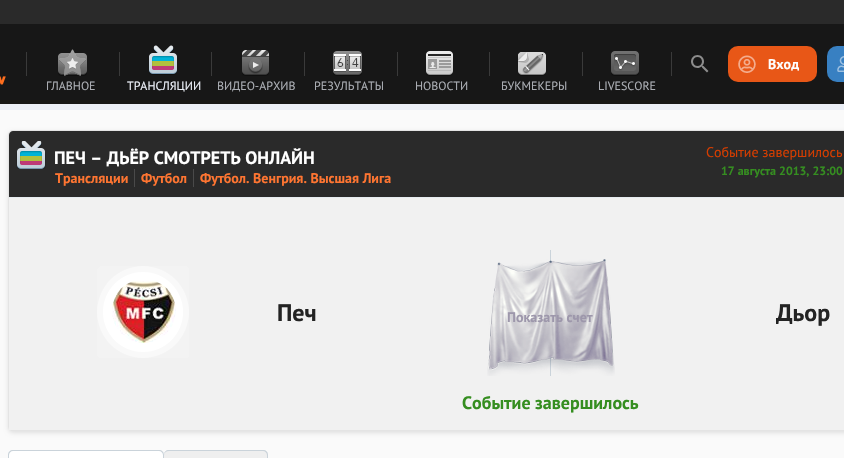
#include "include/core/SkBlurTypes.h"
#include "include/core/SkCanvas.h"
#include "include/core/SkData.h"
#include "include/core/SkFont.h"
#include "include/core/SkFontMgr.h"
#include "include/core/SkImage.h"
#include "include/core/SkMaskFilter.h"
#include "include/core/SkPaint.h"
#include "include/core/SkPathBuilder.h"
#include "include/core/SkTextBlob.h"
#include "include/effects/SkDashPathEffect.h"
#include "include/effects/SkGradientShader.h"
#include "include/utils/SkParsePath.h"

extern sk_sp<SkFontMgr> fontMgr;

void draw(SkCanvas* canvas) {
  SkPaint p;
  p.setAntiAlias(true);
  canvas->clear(SkColorSetRGB(235, 239, 247));
  p.setColor(SkColorSetRGB(42, 42, 42));
  canvas->drawRect(SkRect::MakeLTRB(0, 0, 844, 24), p);
  p.setColor(SkColorSetRGB(23, 23, 23));
  canvas->drawRect(SkRect::MakeLTRB(0, 24, 844, 104), p);
  canvas->drawImageRect(SkImages::DeferredFromEncodedData(SkData::MakeFromFileName("images/1.png")), SkRect::MakeLTRB(691, 55, 709, 73), SkSamplingOptions());
  p.setColor(SkColorSetRGB(232, 87, 23));
  canvas->drawRoundRect(SkRect::MakeLTRB(728, 46, 817, 82), 10, 10, p);
  canvas->drawImageRect(SkImages::DeferredFromEncodedData(SkData::MakeFromFileName("images/2.png")), SkRect::MakeLTRB(738, 55, 756, 73), SkSamplingOptions());
  p.setColor(SkColorSetRGB(56, 128, 194));
  canvas->drawRoundRect(SkRect::MakeLTRB(827, 46, 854, 82), 10, 10, p);
  canvas->drawImageRect(SkImages::DeferredFromEncodedData(SkData::MakeFromFileName("images/3.png")), SkRect::MakeLTRB(837, 56, 844, 72), SkSamplingOptions());
  canvas->drawImageRect(SkImages::DeferredFromEncodedData(SkData::MakeFromFileName("images/4.png")), SkRect::MakeLTRB(0, 76, 6, 85), SkSamplingOptions());
  p.setColor(SkColorSetRGB(58, 58, 58));
  canvas->drawRect(SkRect::MakeLTRB(26, 52, 27, 76), p);
  canvas->drawImageRect(SkImages::DeferredFromEncodedData(SkData::MakeFromFileName("images/5.png")), SkRect::MakeLTRB(58, 49, 87, 76), SkSamplingOptions());
  canvas->drawRect(SkRect::MakeLTRB(119, 52, 120, 76), p);
  canvas->drawImageRect(SkImages::DeferredFromEncodedData(SkData::MakeFromFileName("images/6.png")), SkRect::MakeLTRB(149, 45, 177, 75), SkSamplingOptions());
  canvas->drawRect(SkRect::MakeLTRB(211, 52, 212, 76), p);
  canvas->drawImageRect(SkImages::DeferredFromEncodedData(SkData::MakeFromFileName("images/7.png")), SkRect::MakeLTRB(242, 50, 269, 76), SkSamplingOptions());
  canvas->drawRect(SkRect::MakeLTRB(304, 52, 305, 76), p);
  canvas->drawImageRect(SkImages::DeferredFromEncodedData(SkData::MakeFromFileName("images/8.png")), SkRect::MakeLTRB(333, 51, 362, 76), SkSamplingOptions());
  canvas->drawRect(SkRect::MakeLTRB(397, 52, 398, 76), p);
  canvas->drawImageRect(SkImages::DeferredFromEncodedData(SkData::MakeFromFileName("images/9.png")), SkRect::MakeLTRB(426, 51, 453, 76), SkSamplingOptions());
  canvas->drawRect(SkRect::MakeLTRB(489, 52, 490, 76), p);
  canvas->drawImageRect(SkImages::DeferredFromEncodedData(SkData::MakeFromFileName("images/10.png")), SkRect::MakeLTRB(518, 52, 546, 76), SkSamplingOptions());
  canvas->drawRect(SkRect::MakeLTRB(582, 52, 583, 76), p);
  canvas->drawRect(SkRect::MakeLTRB(671, 52, 672, 76), p);
  canvas->drawImageRect(SkImages::DeferredFromEncodedData(SkData::MakeFromFileName("images/11.png")), SkRect::MakeLTRB(611, 51, 639, 76), SkSamplingOptions());
  p.setColor(SkColorSetRGB(250, 250, 250));
  canvas->drawRect(SkRect::MakeLTRB(0, 110, 844, 458), p);
  p.setColor(SkColorSetARGB(26, 0, 0, 0));
  p.setMaskFilter(SkMaskFilter::MakeBlur(kNormal_SkBlurStyle, 2));
  canvas->drawRoundRect(SkRect::MakeLTRB(8, 132, 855, 433), 5, 5, p);
  p.setMaskFilter(nullptr);
  p.setStyle(SkPaint::kStroke_Style);
  p.setStrokeWidth(1);
  p.setColor(SkColorSetRGB(228, 228, 228));
  canvas->drawRoundRect(SkRect::MakeLTRB(8.5f, 130.5f, 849.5f, 430.5f), 4.5f, 4.5f, p);
  p.setStyle(SkPaint::kFill_Style);
  p.setColor(SkColorSetRGB(42, 42, 42));
  canvas->drawPath(SkPathBuilder().moveTo(13, 131).lineTo(844, 131).cubicTo(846, 131, 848, 133, 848, 135).lineTo(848, 198).lineTo(9, 198).lineTo(9, 135).cubicTo(9, 133, 11, 131, 13, 131).close().detach(), p);
  p.setColor(SkColorSetRGB(230, 235, 240));
  canvas->drawRect(SkRect::MakeLTRB(9, 197, 844, 198), p);
  canvas->drawImageRect(SkImages::DeferredFromEncodedData(SkData::MakeFromFileName("images/12.png")), SkRect::MakeLTRB(16, 141, 46, 169), SkSamplingOptions());
  p.setColor(SkColorSetRGB(74, 74, 74));
  canvas->drawRect(SkRect::MakeLTRB(134, 169, 135, 187), p);
  canvas->drawRect(SkRect::MakeLTRB(193, 169, 194, 187), p);
  p.setColor(SkColorSetRGB(241, 241, 241));
  canvas->drawRect(SkRect::MakeLTRB(9, 198, 844, 430), p);
  canvas->drawImageRect(SkImages::DeferredFromEncodedData(SkData::MakeFromFileName("images/13.png")), SkRect::MakeLTRB(97, 266, 189, 358), SkSamplingOptions());
  canvas->drawImageRect(SkImages::DeferredFromEncodedData(SkData::MakeFromFileName("images/14.png")), SkRect::MakeLTRB(112, 281, 176, 343), SkSamplingOptions());
  p.setColor(SkColorSetRGB(202, 211, 218));
  canvas->drawRect(SkRect::MakeLTRB(550, 250, 551, 376), p);
  canvas->drawImageRect(SkImages::DeferredFromEncodedData(SkData::MakeFromFileName("images/15.png")), SkRect::MakeLTRB(487, 259, 615, 376), SkSamplingOptions());
  p.setColor(SK_ColorWHITE);
  canvas->drawPath(SkPathBuilder().moveTo(13, 450).lineTo(159, 450).cubicTo(162, 450, 164, 452, 164, 455).lineTo(164, 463).lineTo(8, 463).lineTo(8, 455).cubicTo(8, 452, 10, 450, 13, 450).close().detach(), p);
  p.setColor(SkColorSetRGB(202, 211, 218));
  canvas->drawPath(SkPathBuilder(SkPathFillType::kEvenOdd).moveTo(13, 450).lineTo(159, 450).cubicTo(162, 450, 164, 452, 164, 455).lineTo(164, 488).lineTo(8, 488).lineTo(8, 455).cubicTo(8, 452, 10, 450, 13, 450).close().moveTo(13, 451).lineTo(159, 451).cubicTo(161, 451, 163, 453, 163, 455).lineTo(163, 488).lineTo(9, 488).lineTo(9, 455).cubicTo(9, 453, 11, 451, 13, 451).close().detach(), p);
  p.setColor(SkColorSetRGB(239, 239, 239));
  canvas->drawPath(SkPathBuilder().moveTo(169, 450).lineTo(263, 450).cubicTo(266, 450, 268, 452, 268, 455).lineTo(268, 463).lineTo(164, 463).lineTo(164, 455).cubicTo(164, 452, 166, 450, 169, 450).close().detach(), p);
  p.setColor(SkColorSetRGB(202, 211, 218));
  canvas->drawPath(SkPathBuilder(SkPathFillType::kEvenOdd).moveTo(169, 450).lineTo(263, 450).cubicTo(266, 450, 268, 452, 268, 455).lineTo(268, 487).lineTo(164, 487).lineTo(164, 455).cubicTo(164, 452, 166, 450, 169, 450).close().moveTo(169, 451).lineTo(263, 451).cubicTo(265, 451, 267, 453, 267, 455).lineTo(267, 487).lineTo(164, 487).lineTo(164, 455).cubicTo(164, 453, 166, 451, 169, 451).close().detach(), p);
  SkFont font1(fontMgr->matchFamilyStyle("PT Sans", SkFontStyle::Bold()), 14);
  font1.setSubpixel(true);
  p.setColor(SK_ColorWHITE);
  canvas->drawString("Вход", 768, 69, font1, p);
  SkFont font2(fontMgr->matchFamilyStyle("PT Sans", SkFontStyle::Normal()), 12);
  font2.setSubpixel(true);
  p.setColor(SkColorSetRGB(171, 174, 180));
  canvas->drawString("ГЛАВНОЕ", 46, 90, font2, p);
  p.setColor(SkColorSetRGB(235, 239, 247));
  canvas->drawString("ТРАНСЛЯЦИИ", 127, 90, font2, p);
  p.setColor(SkColorSetRGB(171, 174, 180));
  canvas->drawString("ВИДЕО-АРХИВ", 217, 90, font2, p);
  canvas->drawString("РЕЗУЛЬТАТЫ", 314, 90, font2, p);
  canvas->drawString("НОВОСТИ", 415, 90, font2, p);
  canvas->drawString("БУКМЕКЕРЫ", 501, 90, font2, p);
  canvas->drawString("LIVESCORE", 598, 90, font2, p);
  SkFont font3(fontMgr->matchFamilyStyle("PT Sans", SkFontStyle::Bold()), 18);
  font3.setSubpixel(true);
  p.setColor(SK_ColorWHITE);
  canvas->drawString("ПЕЧ – ДЬЁР СМОТРЕТЬ ОНЛАЙН", 54, 164, font3, p);
  p.setColor(SkColorSetRGB(255, 117, 49));
  canvas->drawString("Трансляции", 55, 183, font1, p);
  canvas->drawString("Футбол", 141, 183, font1, p);
  canvas->drawString("Футбол. Венгрия. Высшая Лига", 200, 183, font1, p);
  SkFont font4(fontMgr->matchFamilyStyle("PT Sans", SkFontStyle::Normal()), 14);
  font4.setSubpixel(true);
  p.setColor(SkColorSetRGB(213, 61, 0));
  canvas->drawString("Событие завершилось", 706, 157, font4, p);
  SkFont font5(fontMgr->matchFamilyStyle("PT Sans", SkFontStyle::Bold()), 12);
  font5.setSubpixel(true);
  p.setColor(SkColorSetRGB(53, 142, 32));
  canvas->drawString("17 августа 2013, 23:00", 721, 175, font5, p);
  SkFont font6(fontMgr->matchFamilyStyle("PT Sans", SkFontStyle::Bold()), 24);
  font6.setSubpixel(true);
  p.setColor(SkColorSetRGB(35, 35, 35));
  canvas->drawString("Печ", 277, 321, font6, p);
  canvas->drawString("Дьор", 776, 321, font6, p);
  p.setColor(SkColorSetRGB(157, 151, 171));
  canvas->drawString("Показать счет", 507, 322, font1, p);
  p.setColor(SkColorSetRGB(53, 142, 32));
  canvas->drawString("Событие завершилось", 462, 409, font3, p);
}
